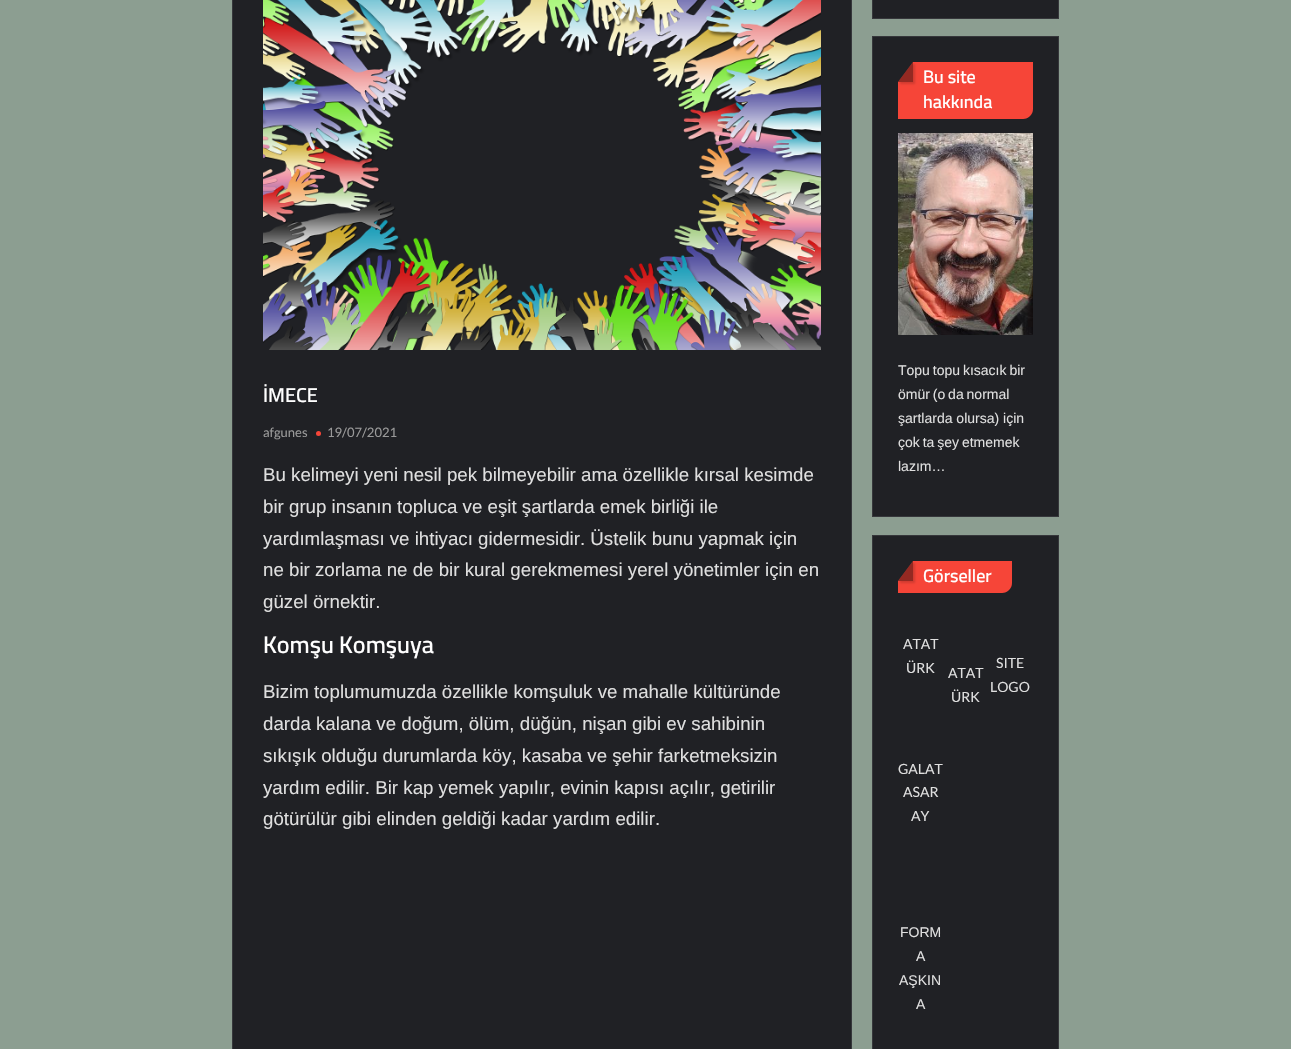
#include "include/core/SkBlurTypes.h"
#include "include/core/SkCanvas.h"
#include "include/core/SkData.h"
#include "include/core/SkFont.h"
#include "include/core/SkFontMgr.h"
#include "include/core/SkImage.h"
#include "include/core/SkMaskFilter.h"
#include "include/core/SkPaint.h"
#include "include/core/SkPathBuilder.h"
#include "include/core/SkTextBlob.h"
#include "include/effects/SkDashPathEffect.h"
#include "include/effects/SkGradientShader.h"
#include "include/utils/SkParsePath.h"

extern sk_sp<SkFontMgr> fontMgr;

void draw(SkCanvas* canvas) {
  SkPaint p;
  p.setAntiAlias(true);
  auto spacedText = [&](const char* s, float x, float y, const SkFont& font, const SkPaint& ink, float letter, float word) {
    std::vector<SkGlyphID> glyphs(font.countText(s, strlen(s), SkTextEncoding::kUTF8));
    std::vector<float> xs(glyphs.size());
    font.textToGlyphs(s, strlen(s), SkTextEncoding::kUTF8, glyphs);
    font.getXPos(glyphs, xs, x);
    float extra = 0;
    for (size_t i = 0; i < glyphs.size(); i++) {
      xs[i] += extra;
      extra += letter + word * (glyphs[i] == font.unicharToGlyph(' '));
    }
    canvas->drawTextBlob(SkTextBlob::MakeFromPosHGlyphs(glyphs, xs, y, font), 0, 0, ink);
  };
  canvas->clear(SkColorSetRGB(140, 158, 145));
  p.setColor(SkColorSetRGB(32, 33, 37));
  canvas->drawRect(SkRect::MakeLTRB(232.5f, -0.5f, 851.5f, 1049.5f), p);
  p.setStyle(SkPaint::kStroke_Style);
  p.setStrokeWidth(1);
  p.setColor(SkColorSetRGB(54, 55, 59));
  canvas->drawRect(SkRect::MakeLTRB(232.5f, -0.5f, 851.5f, 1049.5f), p);
  canvas->drawImageRect(SkImages::DeferredFromEncodedData(SkData::MakeFromFileName("images/1.png")), SkRect::MakeLTRB(263, 0, 821, 350), SkSamplingOptions());
  p.setStyle(SkPaint::kFill_Style);
  p.setColor(SkColorSetRGB(246, 69, 56));
  canvas->drawCircle(318.5f, 433.5f, 2.5f, p);
  p.setColor(SkColorSetRGB(32, 33, 37));
  canvas->drawRect(SkRect::MakeLTRB(872.5f, -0.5f, 1058.5f, 18.5f), p);
  p.setStyle(SkPaint::kStroke_Style);
  p.setColor(SkColorSetRGB(54, 55, 59));
  canvas->drawRect(SkRect::MakeLTRB(872.5f, -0.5f, 1058.5f, 18.5f), p);
  p.setStyle(SkPaint::kFill_Style);
  p.setColor(SkColorSetRGB(32, 33, 37));
  canvas->drawRect(SkRect::MakeLTRB(872.5f, 36.5f, 1058.5f, 516.5f), p);
  p.setStyle(SkPaint::kStroke_Style);
  p.setColor(SkColorSetRGB(54, 55, 59));
  canvas->drawRect(SkRect::MakeLTRB(872.5f, 36.5f, 1058.5f, 516.5f), p);
  p.setStyle(SkPaint::kFill_Style);
  p.setColor(SkColorSetRGB(246, 69, 56));
  canvas->drawPath(SkPathBuilder().moveTo(898, 62).lineTo(1033, 62).lineTo(1033, 109).cubicTo(1033, 114.5f, 1028.5f, 119, 1023, 119).lineTo(898, 119).close().detach(), p);
  p.setColor(SkColorSetRGB(32, 33, 37));
  canvas->drawPath(SkPathBuilder().moveTo(898, 62).lineTo(913, 62).lineTo(898, 82).close().detach(), p);
  canvas->save();
  canvas->clipPath(SkPathBuilder(SkPathFillType::kEvenOdd).moveTo(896, 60).lineTo(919, 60).lineTo(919, 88).lineTo(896, 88).close().moveTo(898, 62).lineTo(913, 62).lineTo(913, 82).lineTo(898, 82).close().detach(), true);
  p.setColor(SkColorSetARGB(38, 0, 0, 0));
  p.setMaskFilter(SkMaskFilter::MakeBlur(kNormal_SkBlurStyle, 1));
  canvas->drawRect(SkRect::MakeLTRB(900, 64, 915, 84), p);
  p.setMaskFilter(nullptr);
  canvas->restore();
  p.setColor(SkColorSetARGB(102, 0, 0, 0));
  canvas->drawPath(SkPathBuilder().moveTo(913, 82).lineTo(898, 82).lineTo(913, 62).close().detach(), p);
  canvas->drawImageRect(SkImages::DeferredFromEncodedData(SkData::MakeFromFileName("images/2.png")), SkRect::MakeLTRB(898, 133, 1033, 335), SkSamplingOptions());
  p.setColor(SkColorSetRGB(32, 33, 37));
  canvas->drawRect(SkRect::MakeLTRB(872.5f, 535.5f, 1058.5f, 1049.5f), p);
  p.setStyle(SkPaint::kStroke_Style);
  p.setColor(SkColorSetRGB(54, 55, 59));
  canvas->drawRect(SkRect::MakeLTRB(872.5f, 535.5f, 1058.5f, 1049.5f), p);
  p.setStyle(SkPaint::kFill_Style);
  p.setColor(SkColorSetRGB(246, 69, 56));
  canvas->drawPath(SkPathBuilder().moveTo(898, 561).lineTo(1012, 561).lineTo(1012, 583).cubicTo(1012, 588.5f, 1007.5f, 593, 1002, 593).lineTo(898, 593).close().detach(), p);
  p.setColor(SkColorSetRGB(32, 33, 37));
  canvas->drawPath(SkPathBuilder().moveTo(898, 561).lineTo(913, 561).lineTo(898, 581).close().detach(), p);
  canvas->save();
  canvas->clipPath(SkPathBuilder(SkPathFillType::kEvenOdd).moveTo(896, 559).lineTo(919, 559).lineTo(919, 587).lineTo(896, 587).close().moveTo(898, 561).lineTo(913, 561).lineTo(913, 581).lineTo(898, 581).close().detach(), true);
  p.setColor(SkColorSetARGB(38, 0, 0, 0));
  p.setMaskFilter(SkMaskFilter::MakeBlur(kNormal_SkBlurStyle, 1));
  canvas->drawRect(SkRect::MakeLTRB(900, 563, 915, 583), p);
  p.setMaskFilter(nullptr);
  canvas->restore();
  p.setColor(SkColorSetARGB(102, 0, 0, 0));
  canvas->drawPath(SkPathBuilder().moveTo(913, 581).lineTo(898, 581).lineTo(913, 561).close().detach(), p);
  SkFont font1(fontMgr->matchFamilyStyle("Cairo", SkFontStyle(600, SkFontStyle::kNormal_Width, SkFontStyle::kUpright_Slant)), 20);
  font1.setSubpixel(true);
  p.setColor(SK_ColorWHITE);
  canvas->drawString("İMECE", 263, 402, font1, p);
  SkFont font2(fontMgr->matchFamilyStyle("Lato", SkFontStyle::Normal()), 13);
  font2.setSubpixel(true);
  p.setColor(SkColorSetRGB(153, 153, 153));
  canvas->drawString("afgunes", 263, 437, font2, p);
  canvas->drawString("19/07/2021", 327, 437, font2, p);
  SkFont font3(fontMgr->matchFamilyStyle("Liberation Sans", SkFontStyle::Normal()), 18.7f);
  font3.setSubpixel(true);
  p.setColor(SkColorSetRGB(223, 223, 223));
  canvas->drawString("Bu kelimeyi yeni nesil pek bilmeyebilir ama özellikle kırsal kesimde", 263, 481, font3, p);
  canvas->drawString("bir grup insanın topluca ve eşit şartlarda emek birliği ile", 263, 513, font3, p);
  canvas->drawString("yardımlaşması ve ihtiyacı gidermesidir. Üstelik bunu yapmak için", 263, 545, font3, p);
  canvas->drawString("ne bir zorlama ne de bir kural gerekmemesi yerel yönetimler için en", 263, 576, font3, p);
  canvas->drawString("güzel örnektir.", 263, 608, font3, p);
  SkFont font4(fontMgr->matchFamilyStyle("Cairo", SkFontStyle(600, SkFontStyle::kNormal_Width, SkFontStyle::kUpright_Slant)), 24);
  font4.setSubpixel(true);
  p.setColor(SK_ColorWHITE);
  canvas->drawString("Komşu Komşuya", 263, 653, font4, p);
  p.setColor(SkColorSetRGB(223, 223, 223));
  canvas->drawString("Bizim toplumumuzda özellikle komşuluk ve mahalle kültüründe", 263, 698, font3, p);
  canvas->drawString("darda kalana ve doğum, ölüm, düğün, nişan gibi ev sahibinin", 263, 730, font3, p);
  canvas->drawString("sıkışık olduğu durumlarda köy, kasaba ve şehir farketmeksizin", 263, 762, font3, p);
  canvas->drawString("yardım edilir. Bir kap yemek yapılır, evinin kapısı açılır, getirilir", 263, 794, font3, p);
  canvas->drawString("götürülür gibi elinden geldiği kadar yardım edilir.", 263, 825, font3, p);
  SkFont font5(fontMgr->matchFamilyStyle("Cairo", SkFontStyle(600, SkFontStyle::kNormal_Width, SkFontStyle::kUpright_Slant)), 18);
  font5.setSubpixel(true);
  p.setColor(SK_ColorWHITE);
  canvas->drawString("Bu site", 923, 83, font5, p);
  canvas->drawString("hakkında", 923, 108, font5, p);
  SkFont font6(fontMgr->matchFamilyStyle("Liberation Sans", SkFontStyle::Normal()), 14);
  font6.setSubpixel(true);
  p.setColor(SkColorSetRGB(223, 223, 223));
  spacedText("Topu topu kısacık bir", 898, 375, font6, p, 0, -1);
  spacedText("ömür (o da normal", 898, 399, font6, p, 0, -1);
  canvas->drawString("şartlarda olursa) için", 898, 423, font6, p);
  spacedText("çok ta şey etmemek", 898, 447, font6, p, 0, -1);
  canvas->drawString("lazım…", 898, 471, font6, p);
  p.setColor(SK_ColorWHITE);
  canvas->drawString("Görseller", 923, 582, font5, p);
  SkFont font7(fontMgr->matchFamilyStyle("Lato", SkFontStyle::Normal()), 14);
  font7.setSubpixel(true);
  p.setColor(SkColorSetRGB(223, 223, 223));
  canvas->drawString("ATAT", 903, 649, font7, p);
  canvas->drawString("ÜRK", 906, 673, font7, p);
  canvas->drawString("ATAT", 948, 678, font7, p);
  canvas->drawString("ÜRK", 951, 702, font7, p);
  canvas->drawString("SITE", 996, 668, font7, p);
  canvas->drawString("LOGO", 990, 692, font7, p);
  canvas->drawString("GALAT", 898, 774, font7, p);
  canvas->drawString("ASAR", 903, 797, font7, p);
  canvas->drawString("AY", 911, 821, font7, p);
  canvas->drawString("FORM", 900, 937, font6, p);
  canvas->drawString("A", 916, 961, font6, p);
  canvas->drawString("AŞKIN", 899, 985, font6, p);
  canvas->drawString("A", 916, 1009, font6, p);
}
